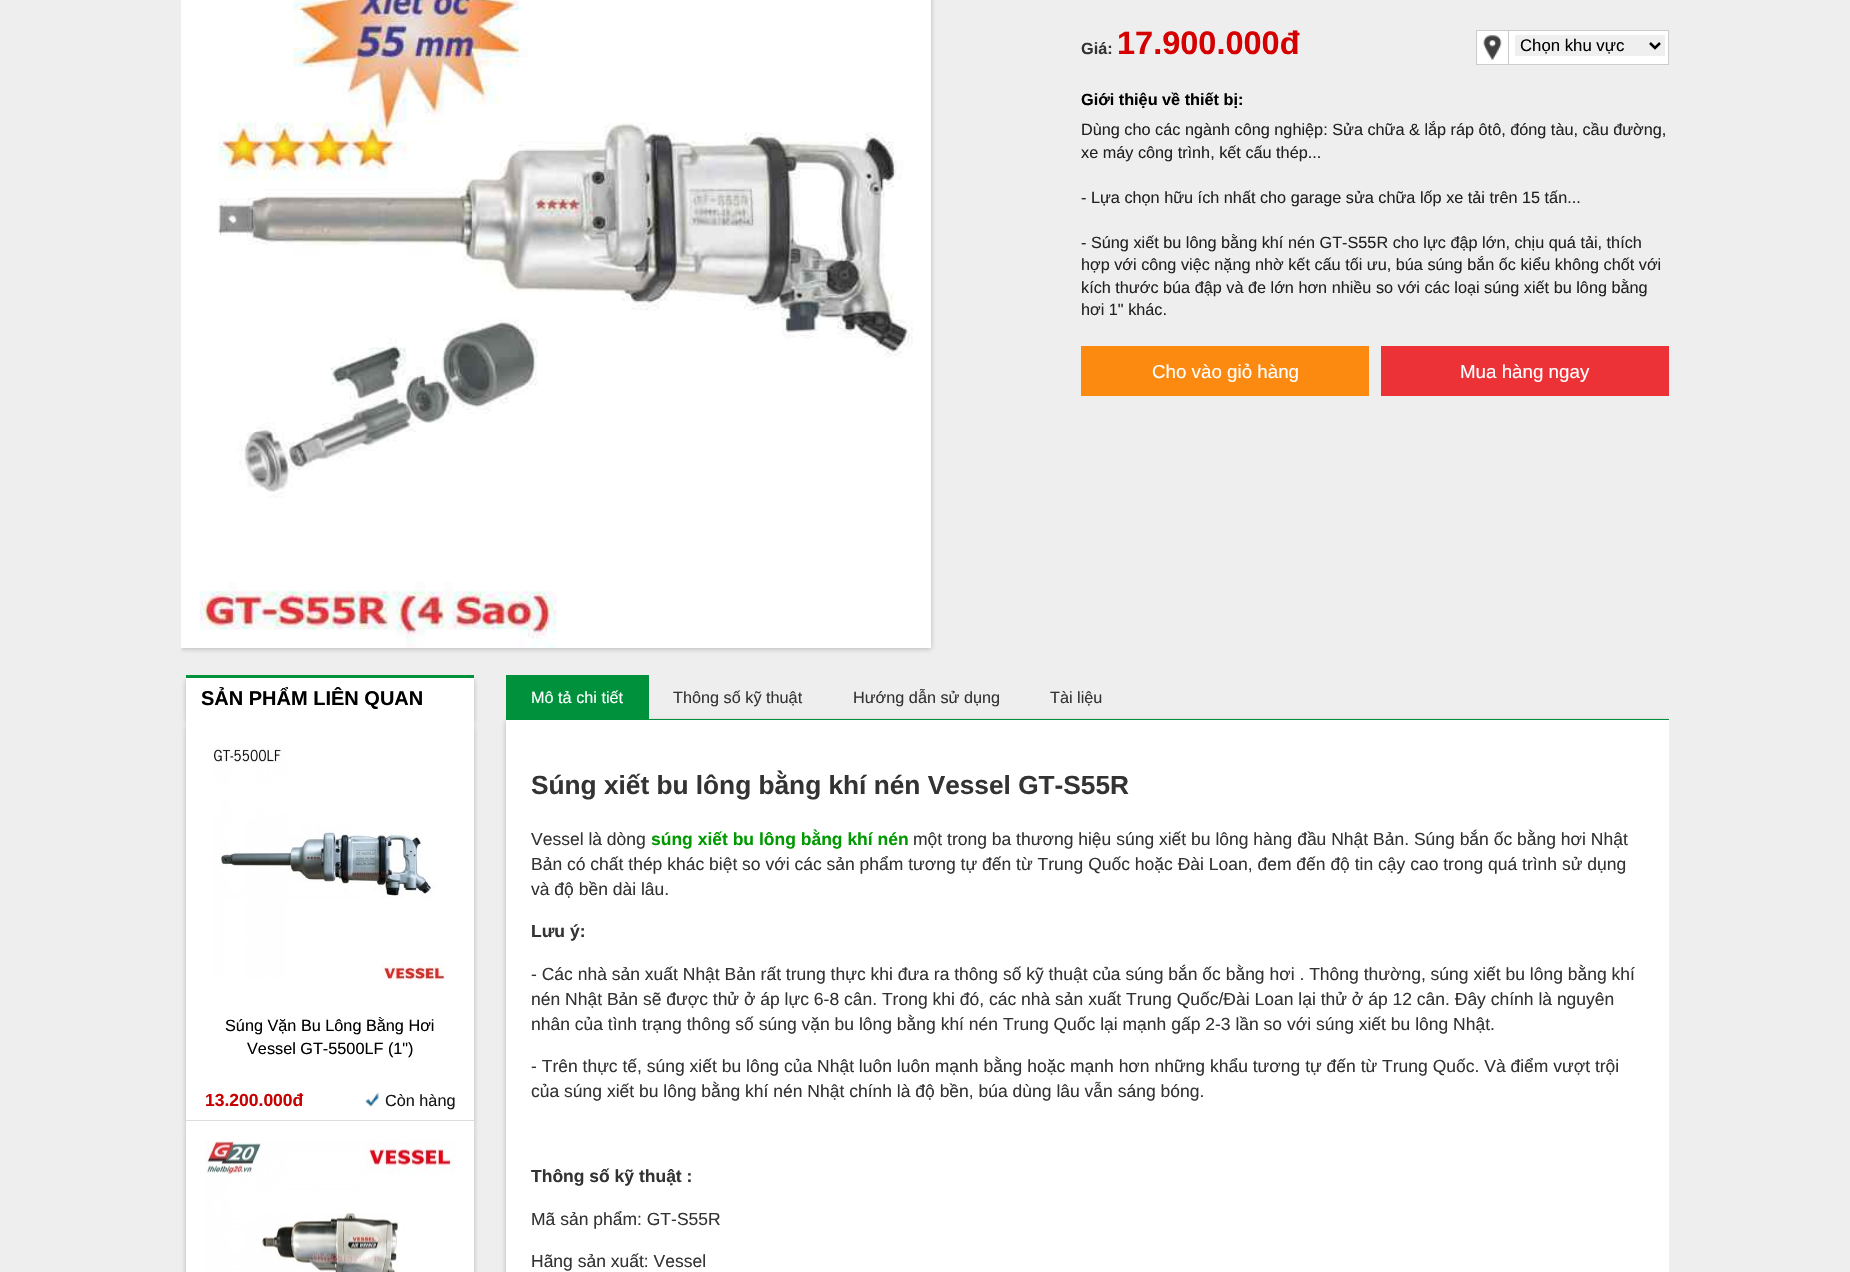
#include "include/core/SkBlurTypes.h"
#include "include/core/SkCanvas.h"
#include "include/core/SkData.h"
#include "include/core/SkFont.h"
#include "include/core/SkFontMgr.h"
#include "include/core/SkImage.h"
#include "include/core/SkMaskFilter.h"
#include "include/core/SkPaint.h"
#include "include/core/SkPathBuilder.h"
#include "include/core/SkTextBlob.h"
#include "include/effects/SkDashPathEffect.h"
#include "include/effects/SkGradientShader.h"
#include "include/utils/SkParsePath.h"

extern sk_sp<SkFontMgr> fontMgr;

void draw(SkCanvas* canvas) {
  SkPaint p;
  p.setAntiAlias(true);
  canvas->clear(SkColorSetRGB(238, 238, 238));
  canvas->save();
  canvas->clipRect(SkRect::MakeLTRB(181, 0, 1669, 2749));
  p.setColor(SkColorSetARGB(204, 173, 170, 170));
  p.setMaskFilter(SkMaskFilter::MakeBlur(kNormal_SkBlurStyle, 2.5f));
  canvas->drawRect(SkRect::MakeLTRB(181, -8, 931, 649), p);
  p.setMaskFilter(nullptr);
  canvas->restore();
  p.setColor(SK_ColorWHITE);
  canvas->drawRect(SkRect::MakeLTRB(181, 0, 931, 648), p);
  canvas->drawImageRect(SkImages::DeferredFromEncodedData(SkData::MakeFromFileName("images/1.png")), SkRect::MakeLTRB(199, 0, 913, 648), SkSamplingOptions());
  canvas->drawRect(SkRect::MakeLTRB(1476.5f, 30.5f, 1668.5f, 64.5f), p);
  p.setStyle(SkPaint::kStroke_Style);
  p.setStrokeWidth(1);
  p.setColor(SkColorSetRGB(204, 204, 204));
  canvas->drawRect(SkRect::MakeLTRB(1476.5f, 30.5f, 1668.5f, 64.5f), p);
  p.setStyle(SkPaint::kFill_Style);
  canvas->drawRect(SkRect::MakeLTRB(1508, 31, 1509, 64), p);
  canvas->drawImageRect(SkImages::DeferredFromEncodedData(SkData::MakeFromFileName("images/2.png")), SkRect::MakeLTRB(1483, 35, 1502, 61), SkSamplingOptions());
  p.setColor(SkColorSetRGB(239, 239, 239));
  canvas->drawRect(SkRect::MakeLTRB(1515, 35, 1665, 56), p);
  p.setStyle(SkPaint::kStroke_Style);
  p.setStrokeWidth(2.5f);
  p.setColor(SK_ColorBLACK);
  canvas->drawPath(SkPathBuilder().moveTo(1650, 43).lineTo(1655, 48).lineTo(1660, 43).detach(), p);
  p.setStyle(SkPaint::kFill_Style);
  p.setColor(SkColorSetRGB(252, 138, 16));
  canvas->drawRect(SkRect::MakeLTRB(1081, 346, 1369, 396), p);
  p.setColor(SkColorSetRGB(236, 50, 55));
  canvas->drawRect(SkRect::MakeLTRB(1381, 346, 1669, 396), p);
  p.setColor(SK_ColorWHITE);
  canvas->drawRect(SkRect::MakeLTRB(186, 678, 474, 719), p);
  canvas->save();
  canvas->clipPath(SkPathBuilder(SkPathFillType::kEvenOdd).moveTo(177, 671).lineTo(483, 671).lineTo(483, 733).lineTo(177, 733).close().moveTo(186, 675).lineTo(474, 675).lineTo(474, 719).lineTo(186, 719).close().detach(), true);
  p.setColor(SkColorSetARGB(204, 173, 170, 170));
  p.setMaskFilter(SkMaskFilter::MakeBlur(kNormal_SkBlurStyle, 2.5f));
  canvas->drawRect(SkRect::MakeLTRB(186, 680, 474, 724), p);
  p.setMaskFilter(nullptr);
  canvas->restore();
  p.setColor(SkColorSetRGB(0, 145, 60));
  canvas->drawRect(SkRect::MakeLTRB(186, 675, 474, 678), p);
  p.setColor(SkColorSetARGB(204, 173, 170, 170));
  p.setMaskFilter(SkMaskFilter::MakeBlur(kNormal_SkBlurStyle, 2.5f));
  canvas->drawRect(SkRect::MakeLTRB(186, 726, 474, 1129), p);
  p.setMaskFilter(nullptr);
  p.setColor(SK_ColorWHITE);
  canvas->drawRect(SkRect::MakeLTRB(186, 719, 474, 1120), p);
  p.setColor(SkColorSetRGB(221, 221, 221));
  canvas->drawRect(SkRect::MakeLTRB(186, 1120, 474, 1121), p);
  canvas->drawImageRect(SkImages::DeferredFromEncodedData(SkData::MakeFromFileName("images/3.png")), SkRect::MakeLTRB(213, 747, 445, 980), SkSamplingOptions());
  canvas->drawImageRect(SkImages::DeferredFromEncodedData(SkData::MakeFromFileName("images/4.png")), SkRect::MakeLTRB(365, 1092, 379, 1107), SkSamplingOptions());
  p.setColor(SkColorSetARGB(204, 173, 170, 170));
  p.setMaskFilter(SkMaskFilter::MakeBlur(kNormal_SkBlurStyle, 2.5f));
  canvas->drawRect(SkRect::MakeLTRB(186, 1129, 474, 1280), p);
  p.setMaskFilter(nullptr);
  p.setColor(SK_ColorWHITE);
  canvas->drawRect(SkRect::MakeLTRB(186, 1121, 474, 1272), p);
  canvas->drawImageRect(SkImages::DeferredFromEncodedData(SkData::MakeFromFileName("images/5.png")), SkRect::MakeLTRB(205, 1141, 455, 1272), SkSamplingOptions());
  canvas->save();
  canvas->clipRect(SkRect::MakeLTRB(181, 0, 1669, 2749));
  p.setColor(SkColorSetARGB(204, 173, 170, 170));
  p.setMaskFilter(SkMaskFilter::MakeBlur(kNormal_SkBlurStyle, 2.5f));
  canvas->drawRect(SkRect::MakeLTRB(506, 721, 1669, 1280), p);
  p.setMaskFilter(nullptr);
  canvas->restore();
  p.setColor(SkColorSetRGB(0, 145, 60));
  canvas->drawRect(SkRect::MakeLTRB(506, 719, 1669, 720), p);
  canvas->drawRect(SkRect::MakeLTRB(506, 675, 649, 719), p);
  p.setColor(SK_ColorWHITE);
  canvas->drawRect(SkRect::MakeLTRB(506, 720, 1669, 1272), p);
  SkFont font1(fontMgr->matchFamilyStyle("Liberation Sans", SkFontStyle::Bold()), 16.25f);
  font1.setSubpixel(true);
  p.setColor(SkColorSetRGB(51, 51, 51));
  canvas->drawString("Giá:", 1081, 54, font1, p);
  SkFont font2(fontMgr->matchFamilyStyle("Liberation Sans", SkFontStyle::Bold()), 32.5f);
  font2.setSubpixel(true);
  p.setColor(SkColorSetRGB(213, 0, 0));
  canvas->drawString("17.900.000đ", 1117, 54, font2, p);
  SkFont font3(fontMgr->matchFamilyStyle("Liberation Sans", SkFontStyle::Normal()), 16.75f);
  font3.setSubpixel(true);
  p.setColor(SK_ColorBLACK);
  canvas->drawString("Chọn khu vực", 1520, 51, font3, p);
  canvas->drawString("Giới thiệu về thiết bị:", 1081, 105, font1, p);
  SkFont font4(fontMgr->matchFamilyStyle("Liberation Sans", SkFontStyle::Normal()), 16.25f);
  font4.setSubpixel(true);
  p.setColor(SkColorSetRGB(34, 34, 34));
  canvas->drawString("Dùng cho các ngành công nghiệp: Sửa chữa & lắp ráp ôtô, đóng tàu, cầu đường,", 1081, 135, font4, p);
  canvas->drawString("xe máy công trình, kết cấu thép...", 1081, 158, font4, p);
  canvas->drawString("- Lựa chọn hữu ích nhất cho garage sửa chữa lốp xe tải trên 15 tấn...", 1081, 203, font4, p);
  canvas->drawString("- Súng xiết bu lông bằng khí nén GT-S55R cho lực đập lớn, chịu quá tải, thích", 1081, 248, font4, p);
  canvas->drawString("hợp với công việc nặng nhờ kết cấu tối ưu, búa súng bắn ốc kiểu không chốt với", 1081, 270, font4, p);
  canvas->drawString("kích thước búa đập và đe lớn hơn nhiều so với các loại súng xiết bu lông bằng", 1081, 293, font4, p);
  canvas->drawString("hơi 1\" khác.", 1081, 315, font4, p);
  SkFont font5(fontMgr->matchFamilyStyle("Liberation Sans", SkFontStyle::Normal()), 18.75f);
  font5.setSubpixel(true);
  p.setColor(SK_ColorWHITE);
  canvas->drawString("Cho vào giỏ hàng", 1152, 378, font5, p);
  canvas->drawString("Mua hàng ngay", 1460, 378, font5, p);
  SkFont font6(fontMgr->matchFamilyStyle("Liberation Sans", SkFontStyle::Bold()), 20);
  font6.setSubpixel(true);
  p.setColor(SK_ColorBLACK);
  canvas->drawString("SẢN PHẨM LIÊN QUAN", 201, 705, font6, p);
  canvas->drawString("Súng Vặn Bu Lông Bằng Hơi", 225, 1031, font4, p);
  canvas->drawString("Vessel GT-5500LF (1\")", 247, 1054, font4, p);
  SkFont font7(fontMgr->matchFamilyStyle("Liberation Sans", SkFontStyle::Bold()), 17.5f);
  font7.setSubpixel(true);
  p.setColor(SkColorSetRGB(199, 2, 2));
  canvas->drawString("13.200.000đ", 205, 1106, font7, p);
  p.setColor(SkColorSetRGB(22, 22, 22));
  canvas->drawString("Còn hàng", 385, 1106, font4, p);
  p.setColor(SK_ColorWHITE);
  canvas->drawString("Mô tả chi tiết", 531, 703, font4, p);
  p.setColor(SkColorSetRGB(51, 51, 51));
  canvas->drawString("Thông số kỹ thuật", 673, 703, font4, p);
  canvas->drawString("Hướng dẫn sử dụng", 853, 703, font4, p);
  canvas->drawString("Tài liệu", 1050, 703, font4, p);
  SkFont font8(fontMgr->matchFamilyStyle("Liberation Sans", SkFontStyle::Bold()), 26.25f);
  font8.setSubpixel(true);
  canvas->drawString("Súng xiết bu lông bằng khí nén Vessel GT-S55R", 531, 794, font8, p);
  SkFont font9(fontMgr->matchFamilyStyle("Liberation Sans", SkFontStyle::Normal()), 17.5f);
  font9.setSubpixel(true);
  canvas->drawString("Vessel là dòng", 531, 845, font9, p);
  p.setColor(SkColorSetRGB(0, 153, 0));
  canvas->drawString("súng xiết bu lông bằng khí nén", 651, 845, font7, p);
  p.setColor(SkColorSetRGB(51, 51, 51));
  canvas->drawString("một trong ba thương hiệu súng xiết bu lông hàng đầu Nhật Bản. Súng bắn ốc bằng hơi Nhật", 913, 845, font9, p);
  canvas->drawString("Bản có chất thép khác biệt so với các sản phẩm tương tự đến từ Trung Quốc hoặc Đài Loan, đem đến độ tin cậy cao trong quá trình sử dụng", 531, 870, font9, p);
  canvas->drawString("và độ bền dài lâu.", 531, 895, font9, p);
  canvas->drawString("Lưu ý:", 531, 937, font7, p);
  canvas->drawString("- Các nhà sản xuất Nhật Bản rất trung thực khi đưa ra thông số kỹ thuật của súng bắn ốc bằng hơi . Thông thường, súng xiết bu lông bằng khí", 531, 980, font9, p);
  canvas->drawString("nén Nhật Bản sẽ được thử ở áp lực 6-8 cân. Trong khi đó, các nhà sản xuất Trung Quốc/Đài Loan lại thử ở áp 12 cân. Đây chính là nguyên", 531, 1005, font9, p);
  canvas->drawString("nhân của tình trạng thông số súng vặn bu lông bằng khí nén Trung Quốc lại mạnh gấp 2-3 lần so với súng xiết bu lông Nhật.", 531, 1030, font9, p);
  canvas->drawString("- Trên thực tế, súng xiết bu lông của Nhật luôn luôn mạnh bằng hoặc mạnh hơn những khẩu tương tự đến từ Trung Quốc. Và điểm vượt trội", 531, 1072, font9, p);
  canvas->drawString("của súng xiết bu lông bằng khí nén Nhật chính là độ bền, búa dùng lâu vẫn sáng bóng.", 531, 1097, font9, p);
  canvas->drawString("Thông số kỹ thuật :", 531, 1182, font7, p);
  canvas->drawString("Mã sản phẩm: GT-S55R", 531, 1225, font9, p);
  canvas->drawString("Hãng sản xuất: Vessel", 531, 1267, font9, p);
}
